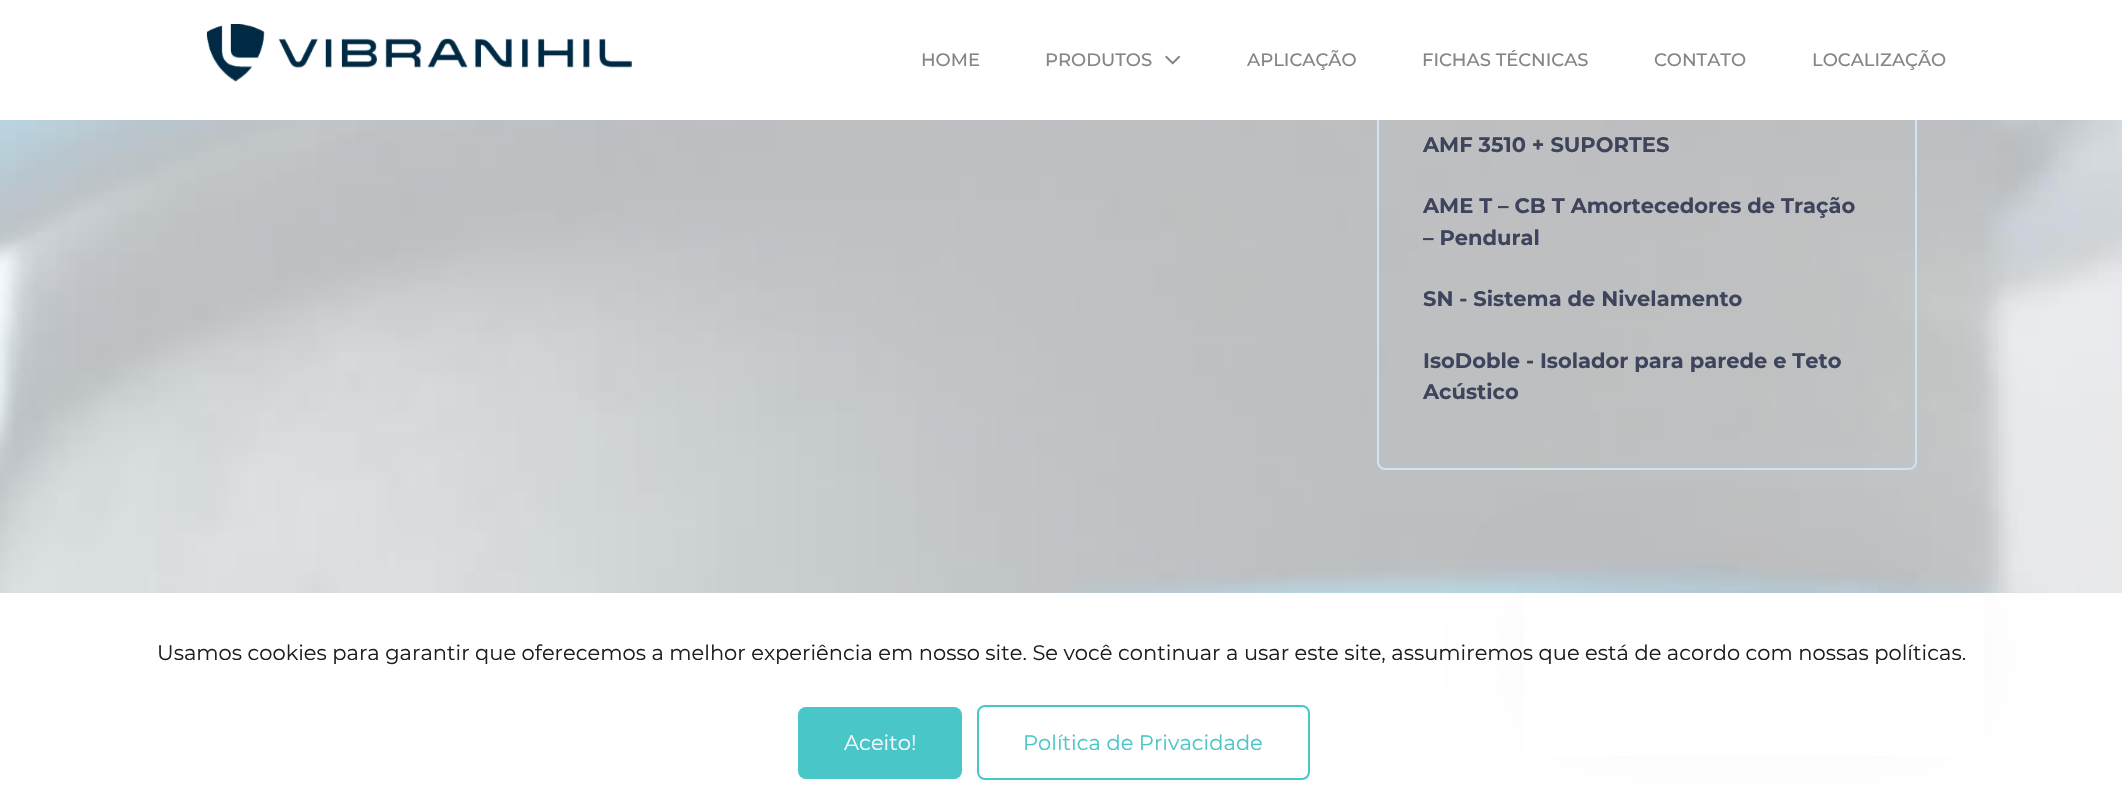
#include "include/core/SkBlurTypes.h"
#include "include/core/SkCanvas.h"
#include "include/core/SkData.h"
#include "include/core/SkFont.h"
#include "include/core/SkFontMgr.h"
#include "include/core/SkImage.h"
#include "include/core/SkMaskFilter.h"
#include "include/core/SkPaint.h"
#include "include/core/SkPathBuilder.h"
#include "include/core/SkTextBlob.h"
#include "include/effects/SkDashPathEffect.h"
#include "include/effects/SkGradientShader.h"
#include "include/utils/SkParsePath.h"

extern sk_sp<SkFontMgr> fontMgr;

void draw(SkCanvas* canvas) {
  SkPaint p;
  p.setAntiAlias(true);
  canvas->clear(SK_ColorWHITE);
  canvas->drawImageRect(SkImages::DeferredFromEncodedData(SkData::MakeFromFileName("images/1.png")), SkRect::MakeLTRB(0, 120, 2122, 593), SkSamplingOptions());
  p.setStyle(SkPaint::kStroke_Style);
  p.setStrokeWidth(2);
  p.setColor(SkColorSetRGB(208, 226, 244));
  canvas->drawRoundRect(SkRect::MakeLTRB(1378, -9, 1916, 469), 7, 7, p);
  p.setStyle(SkPaint::kFill_Style);
  p.setColor(SK_ColorWHITE);
  canvas->drawRect(SkRect::MakeLTRB(1377, 0, 1917, 120), p);
  canvas->drawImageRect(SkImages::DeferredFromEncodedData(SkData::MakeFromFileName("images/2.png")), SkRect::MakeLTRB(206, 24, 632, 82), SkSamplingOptions());
  canvas->drawImageRect(SkImages::DeferredFromEncodedData(SkData::MakeFromFileName("images/3.png")), SkRect::MakeLTRB(1165, 55, 1181, 65), SkSamplingOptions());
  p.setColor(SkColorSetARGB(15, 0, 0, 0));
  p.setMaskFilter(SkMaskFilter::MakeBlur(kNormal_SkBlurStyle, 48));
  canvas->drawRoundRect(SkRect::MakeLTRB(1559, 602, 1949, 710), 18, 18, p);
  p.setMaskFilter(nullptr);
  p.setColor(SK_ColorWHITE);
  canvas->drawRect(SkRect::MakeLTRB(1524, 593, 1984, 756), p);
  p.setColor(SkColorSetRGB(73, 198, 199));
  canvas->drawRoundRect(SkRect::MakeLTRB(798, 707, 962, 779), 8, 8, p);
  p.setStyle(SkPaint::kStroke_Style);
  canvas->drawRoundRect(SkRect::MakeLTRB(978, 706, 1309, 779), 7, 7, p);
  SkFont font1(fontMgr->matchFamilyStyle("Montserrat", SkFontStyle(500, SkFontStyle::kNormal_Width, SkFontStyle::kUpright_Slant)), 18);
  font1.setSubpixel(true);
  p.setStyle(SkPaint::kFill_Style);
  p.setColor(SkColorSetRGB(133, 133, 133));
  canvas->drawString("HOME", 921, 66, font1, p);
  canvas->drawString("PRODUTOS", 1045, 66, font1, p);
  canvas->drawString("APLICAÇÃO", 1247, 66, font1, p);
  canvas->drawString("FICHAS TÉCNICAS", 1422, 66, font1, p);
  canvas->drawString("CONTATO", 1654, 66, font1, p);
  canvas->drawString("LOCALIZAÇÃO", 1812, 66, font1, p);
  SkFont font2(fontMgr->matchFamilyStyle("Montserrat", SkFontStyle::Bold()), 21);
  font2.setSubpixel(true);
  p.setColor(SkColorSetRGB(62, 68, 91));
  canvas->drawString("AMF 3510 + SUPORTES", 1423, 152, font2, p);
  canvas->drawString("AME T – CB T Amortecedores de Tração", 1423, 213, font2, p);
  canvas->drawString("– Pendural", 1423, 245, font2, p);
  canvas->drawString("SN - Sistema de Nivelamento", 1423, 306, font2, p);
  canvas->drawString("IsoDoble - Isolador para parede e Teto", 1423, 368, font2, p);
  canvas->drawString("Acústico", 1423, 399, font2, p);
  SkFont font3(fontMgr->matchFamilyStyle("Montserrat", SkFontStyle::Normal()), 21);
  font3.setSubpixel(true);
  p.setColor(SkColorSetRGB(29, 30, 31));
  canvas->drawString("Usamos cookies para garantir que oferecemos a melhor experiência em nosso site. Se você continuar a usar este site, assumiremos que está de acordo com nossas políticas.", 157, 660, font3, p);
  p.setColor(SkColorSetRGB(248, 248, 255));
  canvas->drawString("Aceito!", 844, 750, font3, p);
  p.setColor(SkColorSetRGB(73, 198, 199));
  canvas->drawString("Política de Privacidade", 1023, 750, font3, p);
}
